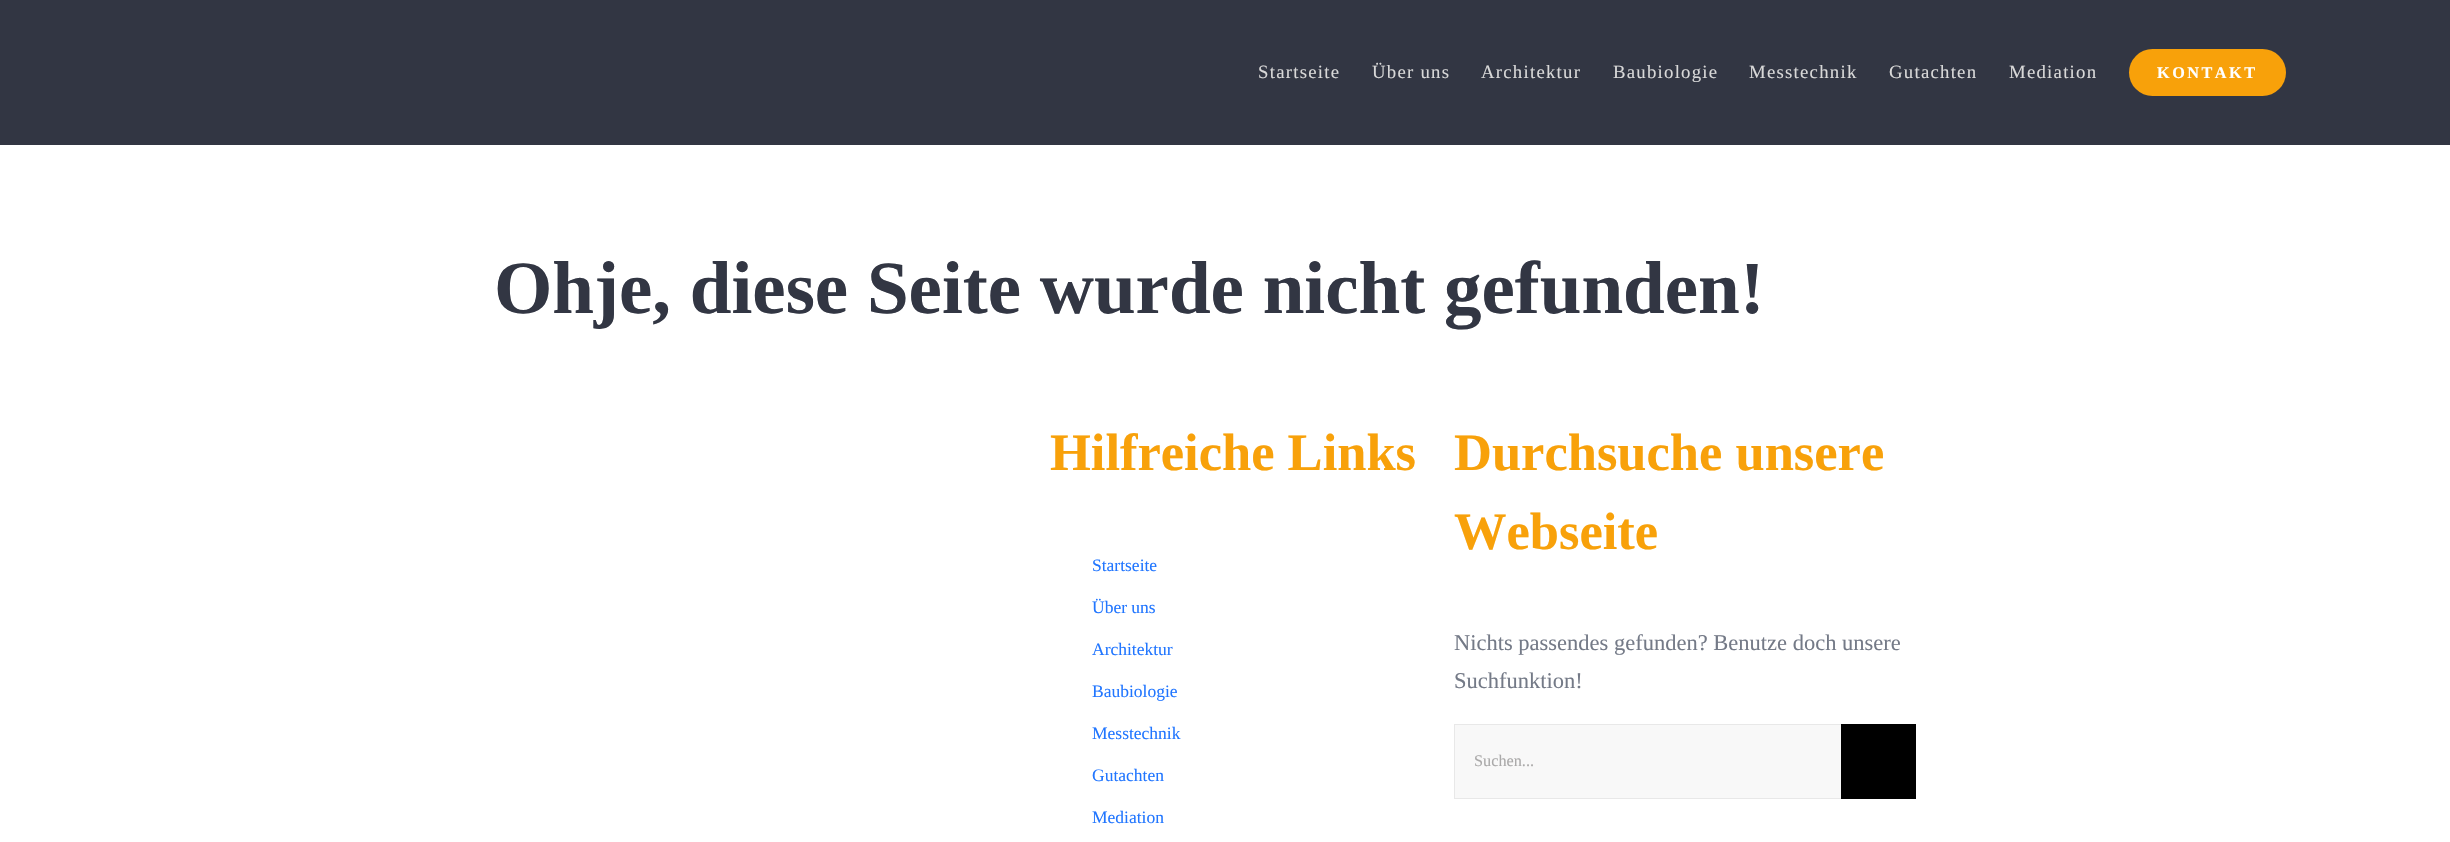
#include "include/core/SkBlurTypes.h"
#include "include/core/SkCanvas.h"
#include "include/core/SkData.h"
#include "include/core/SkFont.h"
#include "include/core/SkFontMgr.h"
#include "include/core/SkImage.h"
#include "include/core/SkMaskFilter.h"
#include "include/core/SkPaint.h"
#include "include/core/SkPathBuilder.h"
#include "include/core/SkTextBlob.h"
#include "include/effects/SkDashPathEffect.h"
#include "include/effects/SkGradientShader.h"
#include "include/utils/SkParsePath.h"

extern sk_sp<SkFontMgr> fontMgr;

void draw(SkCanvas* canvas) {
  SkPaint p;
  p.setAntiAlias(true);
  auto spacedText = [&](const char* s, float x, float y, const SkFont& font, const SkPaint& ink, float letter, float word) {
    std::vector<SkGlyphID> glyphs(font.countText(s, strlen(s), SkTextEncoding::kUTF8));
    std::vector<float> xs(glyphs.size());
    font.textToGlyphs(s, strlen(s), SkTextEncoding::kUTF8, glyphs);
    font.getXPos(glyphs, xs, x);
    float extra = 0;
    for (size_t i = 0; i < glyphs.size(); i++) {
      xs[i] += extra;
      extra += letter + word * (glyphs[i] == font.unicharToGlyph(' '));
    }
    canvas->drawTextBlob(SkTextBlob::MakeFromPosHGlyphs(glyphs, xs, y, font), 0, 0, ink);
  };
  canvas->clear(SK_ColorWHITE);
  p.setColor(SkColorSetRGB(50, 54, 67));
  canvas->drawRect(SkRect::MakeLTRB(0, 0, 2450, 145), p);
  p.setColor(SkColorSetRGB(248, 161, 10));
  canvas->drawRoundRect(SkRect::MakeLTRB(2129, 49, 2286, 96), 23.5f, 23.5f, p);
  p.setColor(SkColorSetRGB(248, 248, 248));
  canvas->drawRect(SkRect::MakeLTRB(1455, 725, 1841, 798), p);
  p.setColor(SkColorSetRGB(232, 232, 232));
  canvas->drawRect(SkRect::MakeLTRB(1454, 724, 1841, 725), p);
  canvas->drawRect(SkRect::MakeLTRB(1454, 798, 1841, 799), p);
  canvas->drawRect(SkRect::MakeLTRB(1454, 724, 1455, 799), p);
  p.setColor(SK_ColorBLACK);
  canvas->drawRect(SkRect::MakeLTRB(1841, 724, 1916, 799), p);
  SkFont font1(fontMgr->matchFamilyStyle("Liberation Serif", SkFontStyle::Normal()), 18.75f);
  font1.setSubpixel(true);
  p.setColor(SkColorSetRGB(216, 216, 216));
  spacedText("Startseite", 1258, 78, font1, p, 1.25f, 0);
  spacedText("Über uns", 1372, 78, font1, p, 1.25f, 0);
  spacedText("Architektur", 1481, 78, font1, p, 1.25f, 0);
  spacedText("Baubiologie", 1613, 78, font1, p, 1.25f, 0);
  spacedText("Messtechnik", 1749, 78, font1, p, 1.25f, 0);
  spacedText("Gutachten", 1889, 78, font1, p, 1.25f, 0);
  spacedText("Mediation", 2009, 78, font1, p, 1.25f, 0);
  SkFont font2(fontMgr->matchFamilyStyle("Liberation Serif", SkFontStyle::Bold()), 16.25f);
  font2.setSubpixel(true);
  p.setColor(SK_ColorWHITE);
  spacedText("KONTAKT", 2157, 78, font2, p, 2.5f, 0);
  SkFont font3(fontMgr->matchFamilyStyle("Liberation Serif", SkFontStyle::Bold()), 75);
  font3.setSubpixel(true);
  p.setColor(SkColorSetRGB(50, 54, 67));
  canvas->drawString("Ohje, diese Seite wurde nicht gefunden!", 494, 313, font3, p);
  SkFont font4(fontMgr->matchFamilyStyle("Liberation Serif", SkFontStyle::Bold()), 52.5f);
  font4.setSubpixel(true);
  p.setColor(SkColorSetRGB(248, 161, 10));
  canvas->drawString("Hilfreiche Links", 1050, 470, font4, p);
  SkFont font5(fontMgr->matchFamilyStyle("Liberation Serif", SkFontStyle::Normal()), 17.5f);
  font5.setSubpixel(true);
  p.setColor(SkColorSetRGB(33, 118, 255));
  canvas->drawString("Startseite", 1092, 571, font5, p);
  canvas->drawString("Über uns", 1092, 613, font5, p);
  canvas->drawString("Architektur", 1092, 655, font5, p);
  canvas->drawString("Baubiologie", 1092, 697, font5, p);
  canvas->drawString("Messtechnik", 1092, 739, font5, p);
  canvas->drawString("Gutachten", 1092, 781, font5, p);
  canvas->drawString("Mediation", 1092, 823, font5, p);
  p.setColor(SkColorSetRGB(248, 161, 10));
  canvas->drawString("Durchsuche unsere", 1454, 470, font4, p);
  canvas->drawString("Webseite", 1454, 549, font4, p);
  SkFont font6(fontMgr->matchFamilyStyle("Liberation Serif", SkFontStyle::Normal()), 22.5f);
  font6.setSubpixel(true);
  p.setColor(SkColorSetRGB(116, 122, 135));
  canvas->drawString("Nichts passendes gefunden? Benutze doch unsere", 1454, 650, font6, p);
  canvas->drawString("Suchfunktion!", 1454, 688, font6, p);
  SkFont font7(fontMgr->matchFamilyStyle("Liberation Serif", SkFontStyle::Normal()), 16.25f);
  font7.setSubpixel(true);
  p.setColor(SkColorSetRGB(170, 169, 169));
  canvas->drawString("Suchen...", 1474, 766, font7, p);
}
